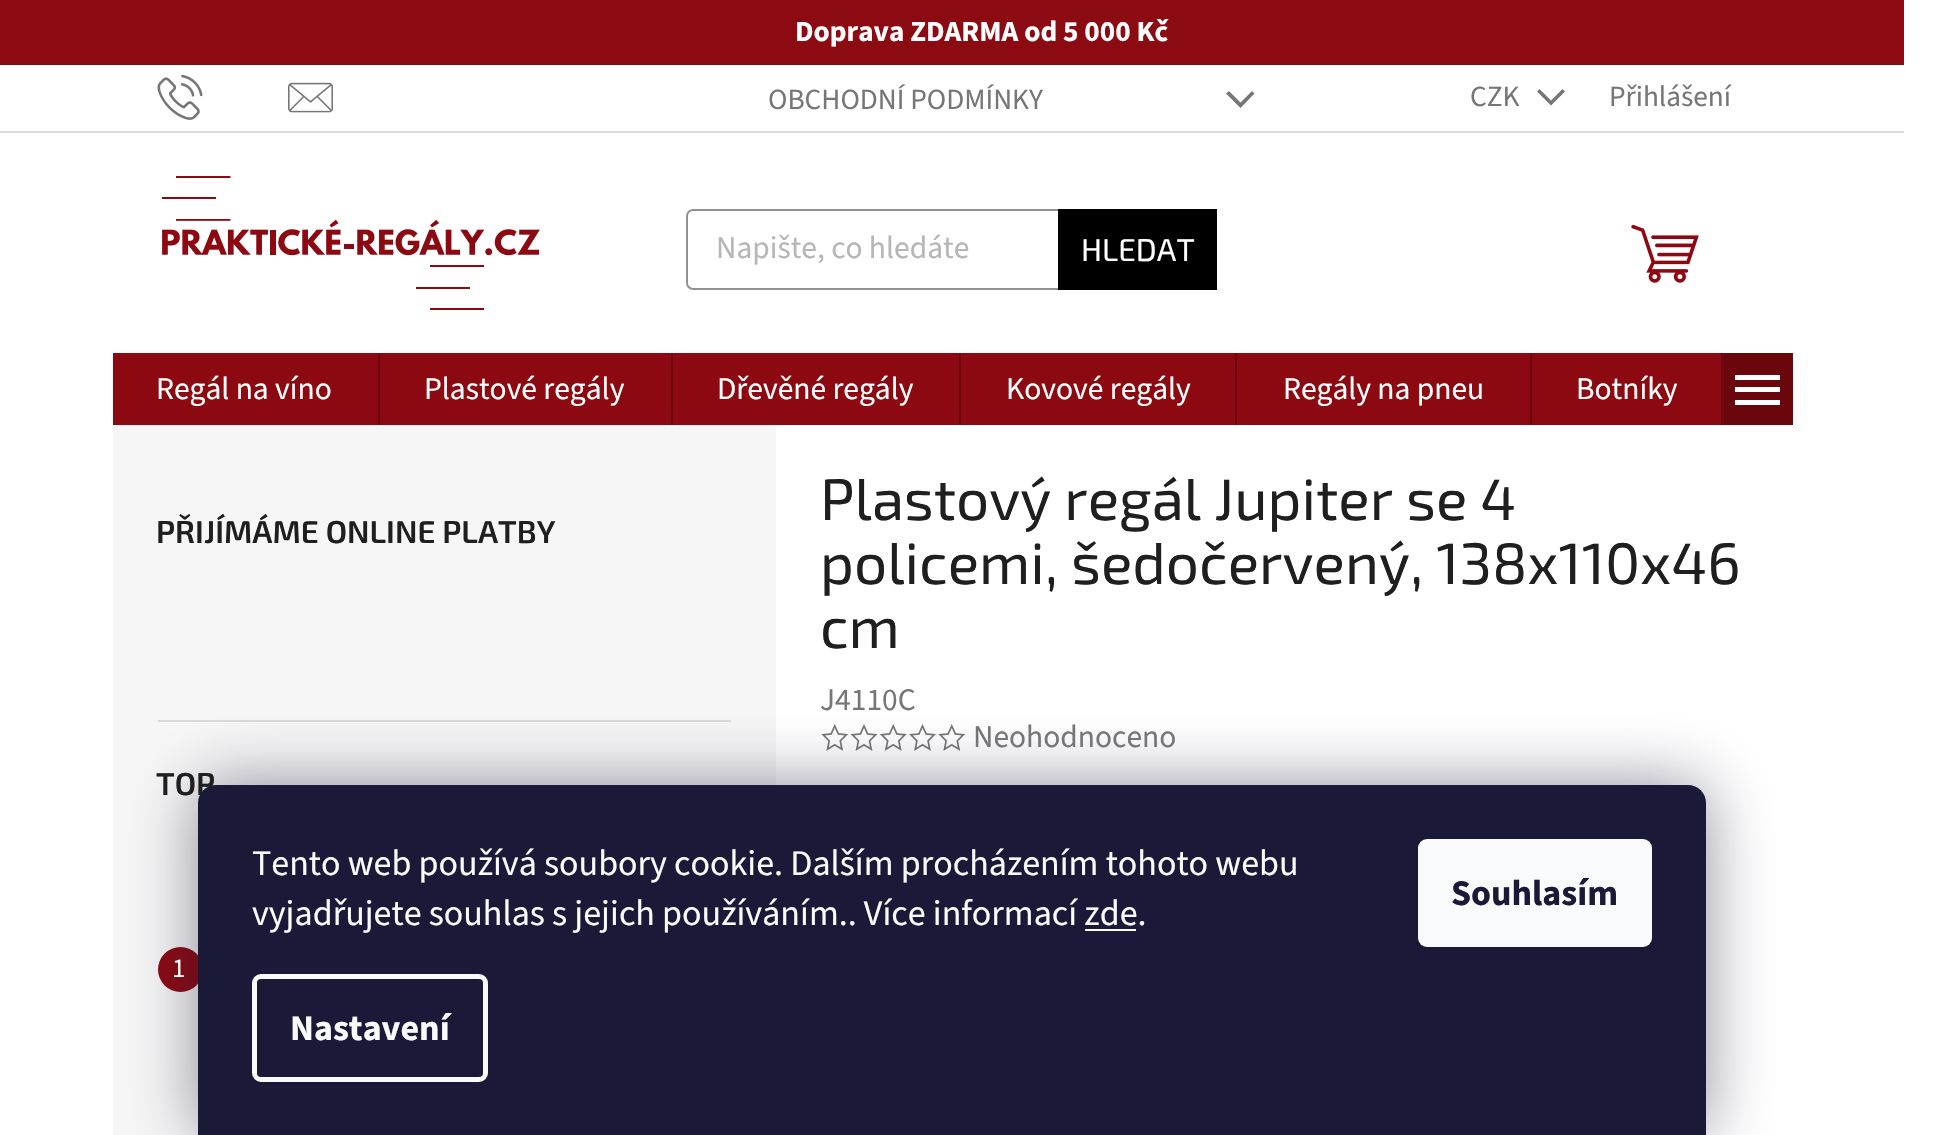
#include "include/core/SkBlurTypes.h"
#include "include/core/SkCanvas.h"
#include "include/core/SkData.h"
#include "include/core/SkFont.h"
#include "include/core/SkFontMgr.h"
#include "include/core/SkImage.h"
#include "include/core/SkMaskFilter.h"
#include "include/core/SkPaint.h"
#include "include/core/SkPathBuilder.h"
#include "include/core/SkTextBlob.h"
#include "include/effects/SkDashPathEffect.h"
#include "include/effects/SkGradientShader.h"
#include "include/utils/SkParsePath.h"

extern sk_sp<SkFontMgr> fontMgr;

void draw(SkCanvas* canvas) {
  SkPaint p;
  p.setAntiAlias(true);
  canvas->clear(SK_ColorWHITE);
  p.setColor(SkColorSetRGB(140, 10, 17));
  canvas->drawRect(SkRect::MakeLTRB(0, 0, 1904, 65), p);
  p.setColor(SkColorSetRGB(218, 218, 218));
  canvas->drawRect(SkRect::MakeLTRB(0, 131, 1904, 133), p);
  canvas->drawImageRect(SkImages::DeferredFromEncodedData(SkData::MakeFromFileName("images/1.png")), SkRect::MakeLTRB(157, 74, 203, 120), SkSamplingOptions());
  canvas->drawImageRect(SkImages::DeferredFromEncodedData(SkData::MakeFromFileName("images/2.png")), SkRect::MakeLTRB(288, 82, 333, 113), SkSamplingOptions());
  p.setColor(SkColorSetRGB(118, 118, 118));
  canvas->drawPath(SkPathBuilder().moveTo(1226, 93.5f).lineTo(1229, 91).lineTo(1240.5f, 102.5f).lineTo(1252, 91).lineTo(1254.5f, 93.5f).lineTo(1240.5f, 108).close().detach(), p);
  canvas->drawPath(SkPathBuilder().moveTo(1537, 91.5f).lineTo(1539.5f, 89).lineTo(1551, 100.5f).lineTo(1562.5f, 89).lineTo(1565, 91.5f).lineTo(1551, 105.5f).close().detach(), p);
  canvas->drawImageRect(SkImages::DeferredFromEncodedData(SkData::MakeFromFileName("images/3.png")), SkRect::MakeLTRB(162, 176, 540, 310), SkSamplingOptions());
  p.setStyle(SkPaint::kStroke_Style);
  p.setStrokeWidth(2);
  p.setColor(SkColorSetRGB(145, 145, 145));
  canvas->drawRoundRect(SkRect::MakeLTRB(687, 210, 1216, 289), 6, 6, p);
  p.setStyle(SkPaint::kFill_Style);
  p.setColor(SK_ColorBLACK);
  canvas->drawRect(SkRect::MakeLTRB(1058, 209, 1217, 290), p);
  canvas->drawImageRect(SkImages::DeferredFromEncodedData(SkData::MakeFromFileName("images/4.png")), SkRect::MakeLTRB(1631, 224, 1699, 283), SkSamplingOptions());
  p.setColor(SkColorSetRGB(140, 9, 17));
  canvas->drawRect(SkRect::MakeLTRB(113, 353, 1721, 425), p);
  p.setColor(SkColorSetRGB(105, 7, 13));
  canvas->drawRect(SkRect::MakeLTRB(378, 353, 380, 425), p);
  canvas->drawRect(SkRect::MakeLTRB(671, 353, 673, 425), p);
  canvas->drawRect(SkRect::MakeLTRB(959, 353, 961, 425), p);
  canvas->drawRect(SkRect::MakeLTRB(1235, 353, 1237, 425), p);
  canvas->drawRect(SkRect::MakeLTRB(1530, 353, 1532, 425), p);
  canvas->drawRect(SkRect::MakeLTRB(1721, 353, 1793, 425), p);
  p.setColor(SK_ColorWHITE);
  canvas->drawPath(SkPathBuilder().moveTo(1735, 405).lineTo(1780, 405).lineTo(1780, 400).lineTo(1735, 400).close().moveTo(1735, 392).lineTo(1780, 392).lineTo(1780, 387).lineTo(1735, 387).close().moveTo(1735, 375).lineTo(1735, 380).lineTo(1780, 380).lineTo(1780, 375).close().detach(), p);
  p.setColor(SkColorSetRGB(246, 246, 246));
  canvas->drawRect(SkRect::MakeLTRB(113, 425, 776, 1135), p);
  p.setColor(SkColorSetRGB(218, 218, 218));
  canvas->drawRect(SkRect::MakeLTRB(158, 720, 731, 722), p);
  p.setColor(SkColorSetRGB(140, 9, 17));
  canvas->drawCircle(180.5f, 969.5f, 22.5f, p);
  canvas->drawImageRect(SkImages::DeferredFromEncodedData(SkData::MakeFromFileName("images/5.png")), SkRect::MakeLTRB(821, 724, 849, 751), SkSamplingOptions());
  canvas->drawImageRect(SkImages::DeferredFromEncodedData(SkData::MakeFromFileName("images/6.png")), SkRect::MakeLTRB(850, 724, 878, 751), SkSamplingOptions());
  canvas->drawImageRect(SkImages::DeferredFromEncodedData(SkData::MakeFromFileName("images/7.png")), SkRect::MakeLTRB(879, 724, 907, 751), SkSamplingOptions());
  canvas->drawImageRect(SkImages::DeferredFromEncodedData(SkData::MakeFromFileName("images/8.png")), SkRect::MakeLTRB(909, 724, 936, 751), SkSamplingOptions());
  canvas->drawImageRect(SkImages::DeferredFromEncodedData(SkData::MakeFromFileName("images/5.png")), SkRect::MakeLTRB(938, 724, 966, 751), SkSamplingOptions());
  p.setColor(SkColorSetARGB(128, 27, 25, 57));
  p.setMaskFilter(SkMaskFilter::MakeBlur(kNormal_SkBlurStyle, 34));
  canvas->drawRoundRect(SkRect::MakeLTRB(198, 785, 1706, 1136), 18, 18, p);
  p.setMaskFilter(nullptr);
  SkFont font1(fontMgr->matchFamilyStyle("Source Sans 3", SkFontStyle::Bold()), 29.25f);
  font1.setSubpixel(true);
  p.setColor(SK_ColorWHITE);
  canvas->drawString("Doprava ZDARMA od 5 000 Kč", 795, 41, font1, p);
  SkFont font2(fontMgr->matchFamilyStyle("Source Sans 3", SkFontStyle::Normal()), 29.25f);
  font2.setSubpixel(true);
  p.setColor(SkColorSetRGB(118, 118, 118));
  canvas->drawString("OBCHODNÍ PODMÍNKY", 768, 109, font2, p);
  canvas->drawString("CZK", 1470, 106, font2, p);
  canvas->drawString("Přihlášení", 1609, 106, font2, p);
  SkFont font3(fontMgr->matchFamilyStyle("Source Sans 3", SkFontStyle::Normal()), 31.5f);
  font3.setSubpixel(true);
  p.setColor(SkColorSetRGB(182, 182, 182));
  canvas->drawString("Napište, co hledáte", 716, 258, font3, p);
  SkFont font4(fontMgr->matchFamilyStyle("Exo 2", SkFontStyle::Normal()), 31.5f);
  font4.setSubpixel(true);
  p.setColor(SK_ColorWHITE);
  canvas->drawString("HLEDAT", 1081, 261, font4, p);
  canvas->drawString("Regál na víno", 156, 399, font3, p);
  canvas->drawString("Plastové regály", 424, 399, font3, p);
  canvas->drawString("Dřevěné regály", 717, 399, font3, p);
  canvas->drawString("Kovové regály", 1006, 399, font3, p);
  canvas->drawString("Regály na pneu", 1283, 399, font3, p);
  canvas->drawString("Botníky", 1576, 399, font3, p);
  SkFont font5(fontMgr->matchFamilyStyle("Exo 2", SkFontStyle(600, SkFontStyle::kNormal_Width, SkFontStyle::kUpright_Slant)), 31.5f);
  font5.setSubpixel(true);
  p.setColor(SkColorSetRGB(31, 31, 31));
  canvas->drawString("PŘIJÍMÁME ONLINE PLATBY", 156, 543, font5, p);
  canvas->drawString("TOP", 156, 795, font5, p);
  SkFont font6(fontMgr->matchFamilyStyle("Source Sans 3", SkFontStyle::Normal()), 27);
  font6.setSubpixel(true);
  p.setColor(SK_ColorWHITE);
  canvas->drawString("1", 172, 977, font6, p);
  SkFont font7(fontMgr->matchFamilyStyle("Exo 2", SkFontStyle::Normal()), 58.5f);
  font7.setSubpixel(true);
  p.setColor(SkColorSetRGB(31, 31, 31));
  canvas->drawString("Plastový regál Jupiter se 4", 820, 520, font7, p);
  canvas->drawString("policemi, šedočervený, 138x110x46", 820, 584, font7, p);
  canvas->drawString("cm", 820, 648, font7, p);
  p.setColor(SkColorSetRGB(118, 118, 118));
  canvas->drawString("J4110C", 820, 710, font3, p);
  canvas->drawString("Neohodnoceno", 973, 747, font3, p);
  p.setColor(SkColorSetRGB(26, 25, 55));
  canvas->drawPath(SkPathBuilder().moveTo(216, 785).lineTo(1688, 785).cubicTo(1698, 785, 1706, 793, 1706, 803).lineTo(1706, 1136).lineTo(198, 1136).lineTo(198, 803).cubicTo(198, 793, 206, 785, 216, 785).close().detach(), p);
  SkFont font8(fontMgr->matchFamilyStyle("Source Sans 3", SkFontStyle::Normal()), 36);
  font8.setSubpixel(true);
  p.setColor(SkColorSetRGB(248, 250, 251));
  canvas->drawString("Tento web používá soubory cookie. Dalším procházením tohoto webu", 252, 875, font8, p);
  canvas->drawString("vyjadřujete souhlas s jejich používáním.. Více informací zde.", 252, 925, font8, p);
  canvas->drawRect(SkRect::MakeLTRB(1085, 929, 1136, 931), p);
  p.setStyle(SkPaint::kStroke_Style);
  p.setStrokeWidth(5);
  canvas->drawRoundRect(SkRect::MakeLTRB(254.5f, 976.5f, 485.5f, 1079.5f), 6.5f, 6.5f, p);
  SkFont font9(fontMgr->matchFamilyStyle("Source Sans 3", SkFontStyle::Bold()), 36);
  font9.setSubpixel(true);
  p.setStyle(SkPaint::kFill_Style);
  canvas->drawString("Nastavení", 290, 1040, font9, p);
  canvas->drawRoundRect(SkRect::MakeLTRB(1418, 839, 1652, 947), 9, 9, p);
  p.setColor(SkColorSetRGB(26, 25, 55));
  canvas->drawString("Souhlasím", 1451, 905, font9, p);
}
